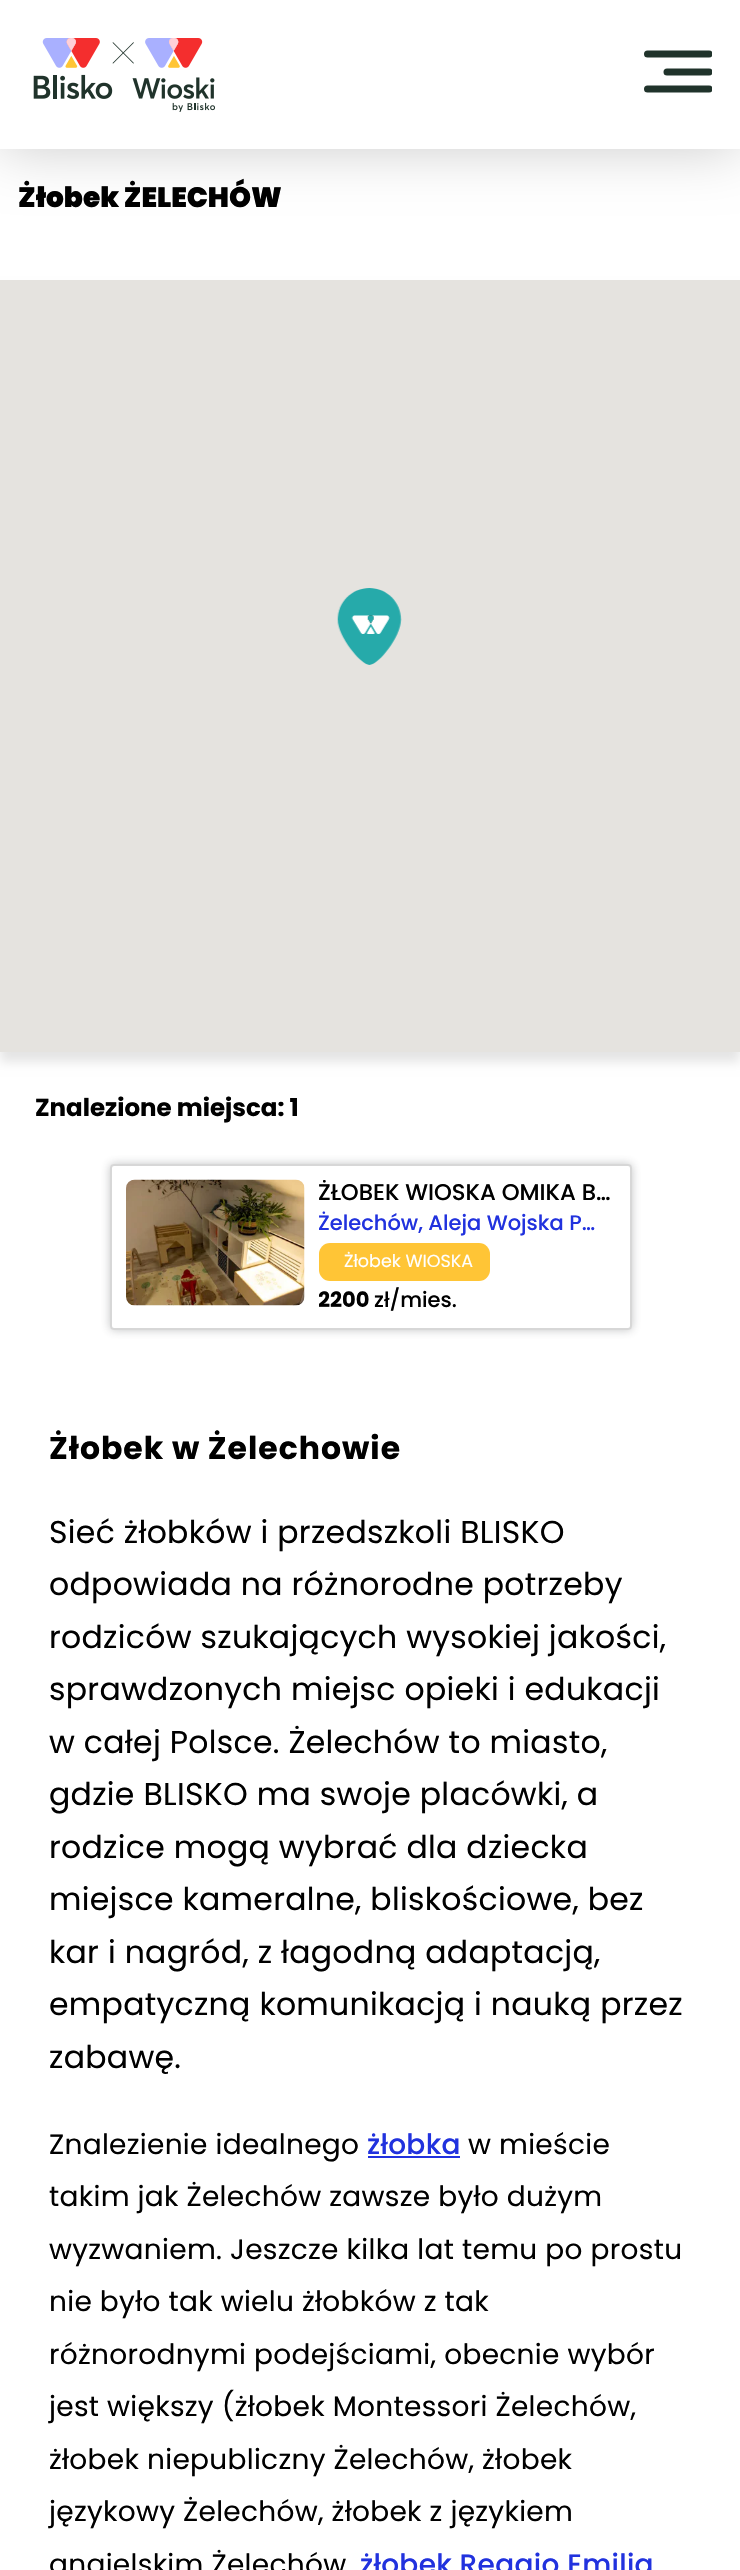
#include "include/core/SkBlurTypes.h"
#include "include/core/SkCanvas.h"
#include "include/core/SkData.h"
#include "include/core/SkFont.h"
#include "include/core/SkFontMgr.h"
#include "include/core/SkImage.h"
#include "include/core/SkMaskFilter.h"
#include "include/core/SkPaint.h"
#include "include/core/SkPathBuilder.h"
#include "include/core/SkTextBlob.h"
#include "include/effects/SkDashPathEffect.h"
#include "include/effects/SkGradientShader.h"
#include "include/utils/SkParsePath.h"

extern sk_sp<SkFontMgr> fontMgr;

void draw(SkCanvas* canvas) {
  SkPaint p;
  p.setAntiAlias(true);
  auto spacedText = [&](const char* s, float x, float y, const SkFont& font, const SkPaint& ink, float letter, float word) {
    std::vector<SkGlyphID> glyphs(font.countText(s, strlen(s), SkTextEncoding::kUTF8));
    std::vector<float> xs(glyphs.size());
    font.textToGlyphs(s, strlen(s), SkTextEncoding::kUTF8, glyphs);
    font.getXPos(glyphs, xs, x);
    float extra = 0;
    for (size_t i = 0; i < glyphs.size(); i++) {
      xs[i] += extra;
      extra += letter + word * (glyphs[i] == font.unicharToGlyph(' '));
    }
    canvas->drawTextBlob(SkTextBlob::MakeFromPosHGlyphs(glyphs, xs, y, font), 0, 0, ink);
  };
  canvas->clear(SK_ColorWHITE);
  p.setColor(SkColorSetARGB(51, 0, 0, 0));
  p.setMaskFilter(SkMaskFilter::MakeBlur(kNormal_SkBlurStyle, 28));
  canvas->drawRect(SkRect::MakeLTRB(0, 0, 740, 149), p);
  p.setMaskFilter(nullptr);
  p.setColor(SK_ColorWHITE);
  canvas->drawRect(SkRect::MakeLTRB(0, 0, 740, 149), p);
  canvas->drawImageRect(SkImages::DeferredFromEncodedData(SkData::MakeFromFileName("images/1.png")), SkRect::MakeLTRB(33, 38, 215, 112), SkSamplingOptions());
  canvas->save();
  canvas->clipRect(SkRect::MakeLTRB(632, 46, 712, 103));
  p.setStyle(SkPaint::kStroke_Style);
  p.setStrokeWidth(7);
  p.setStrokeCap(SkPaint::kRound_Cap);
  p.setColor(SkColorSetRGB(32, 51, 43));
  canvas->drawPath(SkPathBuilder().moveTo(647.5f, 54).lineTo(709, 54).detach(), p);
  canvas->drawPath(SkPathBuilder().moveTo(647.5f, 89).lineTo(709, 89).detach(), p);
  canvas->drawPath(SkPathBuilder().moveTo(667, 72).lineTo(709, 72).detach(), p);
  canvas->restore();
  p.setStyle(SkPaint::kFill_Style);
  p.setColor(SkColorSetARGB(26, 0, 0, 0));
  p.setMaskFilter(SkMaskFilter::MakeBlur(kNormal_SkBlurStyle, 5));
  canvas->drawRect(SkRect::MakeLTRB(0, 291, 740, 1062), p);
  p.setMaskFilter(nullptr);
  p.setColor(SkColorSetRGB(229, 227, 223));
  canvas->drawRect(SkRect::MakeLTRB(0, 280, 740, 1052), p);
  canvas->drawImageRect(SkImages::DeferredFromEncodedData(SkData::MakeFromFileName("images/2.png")), SkRect::MakeLTRB(337, 588, 402, 665), SkSamplingOptions());
  canvas->save();
  canvas->clipPath(SkPathBuilder(SkPathFillType::kEvenOdd).moveTo(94, 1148).lineTo(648, 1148).lineTo(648, 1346).lineTo(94, 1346).close().moveTo(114, 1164).lineTo(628, 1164).cubicTo(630, 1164, 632, 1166, 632, 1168).lineTo(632, 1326).cubicTo(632, 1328, 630, 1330, 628, 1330).lineTo(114, 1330).cubicTo(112, 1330, 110, 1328, 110, 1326).lineTo(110, 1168).cubicTo(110, 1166, 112, 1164, 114, 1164).close().detach(), true);
  p.setColor(SkColorSetARGB(77, 56, 58, 63));
  p.setMaskFilter(SkMaskFilter::MakeBlur(kNormal_SkBlurStyle, 5));
  canvas->drawRoundRect(SkRect::MakeLTRB(110, 1164, 632, 1330), 4, 4, p);
  p.setMaskFilter(nullptr);
  canvas->restore();
  p.setStyle(SkPaint::kStroke_Style);
  p.setStrokeWidth(2);
  p.setStrokeCap(SkPaint::kButt_Cap);
  p.setColor(SkColorSetRGB(215, 215, 215));
  canvas->drawRoundRect(SkRect::MakeLTRB(111, 1165, 631, 1329), 3, 3, p);
  canvas->drawImageRect(SkImages::DeferredFromEncodedData(SkData::MakeFromFileName("images/3.png")), SkRect::MakeLTRB(126, 1179, 305, 1306), SkSamplingOptions());
  p.setStyle(SkPaint::kFill_Style);
  p.setColor(SkColorSetRGB(255, 197, 54));
  canvas->drawRoundRect(SkRect::MakeLTRB(319, 1243, 490, 1281), 11, 11, p);
  p.setColor(SkColorSetRGB(33, 50, 222));
  canvas->drawRect(SkRect::MakeLTRB(368, 2156, 460, 2158), p);
  SkFont font1(fontMgr->matchFamilyStyle("Poppins", SkFontStyle(900, SkFontStyle::kNormal_Width, SkFontStyle::kUpright_Slant)), 28);
  font1.setSubpixel(true);
  p.setColor(SK_ColorBLACK);
  canvas->drawString("Żłobek ŻELECHÓW", 18, 207, font1, p);
  SkFont font2(fontMgr->matchFamilyStyle("Poppins", SkFontStyle::Bold()), 24.5f);
  font2.setSubpixel(true);
  canvas->drawString("Znalezione miejsca: 1", 35, 1116, font2, p);
  canvas->save();
  canvas->clipRect(SkRect::MakeLTRB(319, 1180, 616, 1208));
  SkFont font3(fontMgr->matchFamilyStyle("Poppins", SkFontStyle(500, SkFontStyle::kNormal_Width, SkFontStyle::kUpright_Slant)), 22.75f);
  font3.setSubpixel(true);
  canvas->drawString("ŻŁOBEK WIOSKA OMIKA B…", 318, 1200, font3, p);
  canvas->restore();
  canvas->save();
  canvas->clipRect(SkRect::MakeLTRB(319, 1208, 607, 1243));
  SkFont font4(fontMgr->matchFamilyStyle("Poppins", SkFontStyle(500, SkFontStyle::kNormal_Width, SkFontStyle::kUpright_Slant)), 21);
  font4.setSubpixel(true);
  p.setColor(SkColorSetRGB(33, 50, 222));
  canvas->drawString("Żelechów, Aleja Wojska P…", 318, 1230, font4, p);
  canvas->restore();
  SkFont font5(fontMgr->matchFamilyStyle("Poppins", SkFontStyle::Normal()), 17.5f);
  font5.setSubpixel(true);
  p.setColor(SK_ColorWHITE);
  canvas->drawString("Żłobek WIOSKA", 344, 1267, font5, p);
  canvas->save();
  canvas->clipRect(SkRect::MakeLTRB(319, 1286, 571, 1314));
  SkFont font6(fontMgr->matchFamilyStyle("Poppins", SkFontStyle::Bold()), 21);
  font6.setSubpixel(true);
  p.setColor(SK_ColorBLACK);
  canvas->drawString("2200", 318, 1307, font6, p);
  canvas->restore();
  canvas->drawString("zł/mies.", 374, 1307, font4, p);
  SkFont font7(fontMgr->matchFamilyStyle("Poppins", SkFontStyle::Bold()), 31.5f);
  font7.setSubpixel(true);
  spacedText("Żłobek w Żelechowie", 49, 1459, font7, p, 1, 0);
  SkFont font8(fontMgr->matchFamilyStyle("Poppins", SkFontStyle::Normal()), 31.5f);
  font8.setSubpixel(true);
  spacedText("Sieć żłobków i przedszkoli BLISKO", 49, 1543, font8, p, 0.3f, 0);
  spacedText("odpowiada na różnorodne potrzeby", 49, 1595, font8, p, 0.3f, 0);
  spacedText("rodziców szukających wysokiej jakości,", 49, 1648, font8, p, 0.3f, 0);
  spacedText("sprawdzonych miejsc opieki i edukacji", 49, 1700, font8, p, 0.3f, 0);
  spacedText("w całej Polsce. Żelechów to miasto,", 49, 1753, font8, p, 0.3f, 0);
  spacedText("gdzie BLISKO ma swoje placówki, a", 49, 1805, font8, p, 0.3f, 0);
  spacedText("rodzice mogą wybrać dla dziecka", 49, 1858, font8, p, 0.3f, 0);
  spacedText("miejsce kameralne, bliskościowe, bez", 49, 1910, font8, p, 0.3f, 0);
  spacedText("kar i nagród, z łagodną adaptacją,", 49, 1963, font8, p, 0.3f, 0);
  spacedText("empatyczną komunikacją i nauką przez", 49, 2015, font8, p, 0.3f, 0);
  spacedText("zabawę.", 49, 2068, font8, p, 0.3f, 0);
  SkFont font9(fontMgr->matchFamilyStyle("Poppins", SkFontStyle::Normal()), 28);
  font9.setSubpixel(true);
  spacedText("Znalezienie idealnego", 49, 2154, font9, p, 0.3f, 0);
  SkFont font10(fontMgr->matchFamilyStyle("Poppins", SkFontStyle(500, SkFontStyle::kNormal_Width, SkFontStyle::kUpright_Slant)), 28);
  font10.setSubpixel(true);
  p.setColor(SkColorSetRGB(33, 50, 222));
  spacedText("żłobka", 367, 2154, font10, p, 0.3f, 0);
  p.setColor(SK_ColorBLACK);
  spacedText("w mieście", 468, 2154, font9, p, 0.3f, 0);
  spacedText("takim jak Żelechów zawsze było dużym", 49, 2206, font9, p, 0.3f, 0);
  spacedText("wyzwaniem. Jeszcze kilka lat temu po prostu", 49, 2259, font9, p, 0.3f, 0);
  spacedText("nie było tak wielu żłobków z tak", 49, 2311, font9, p, 0.3f, 0);
  spacedText("różnorodnymi podejściami, obecnie wybór", 49, 2364, font9, p, 0.3f, 0);
  spacedText("jest większy (żłobek Montessori Żelechów,", 49, 2416, font9, p, 0.3f, 0);
  spacedText("żłobek niepubliczny Żelechów, żłobek", 49, 2469, font9, p, 0.3f, 0);
  spacedText("językowy Żelechów, żłobek z językiem", 49, 2521, font9, p, 0.3f, 0);
  spacedText("angielskim Żelechów", 49, 2574, font9, p, 0.3f, 0);
  p.setColor(SkColorSetRGB(33, 50, 222));
  spacedText("żłobek Reggio Emilia", 360, 2574, font10, p, 0.3f, 0);
}
